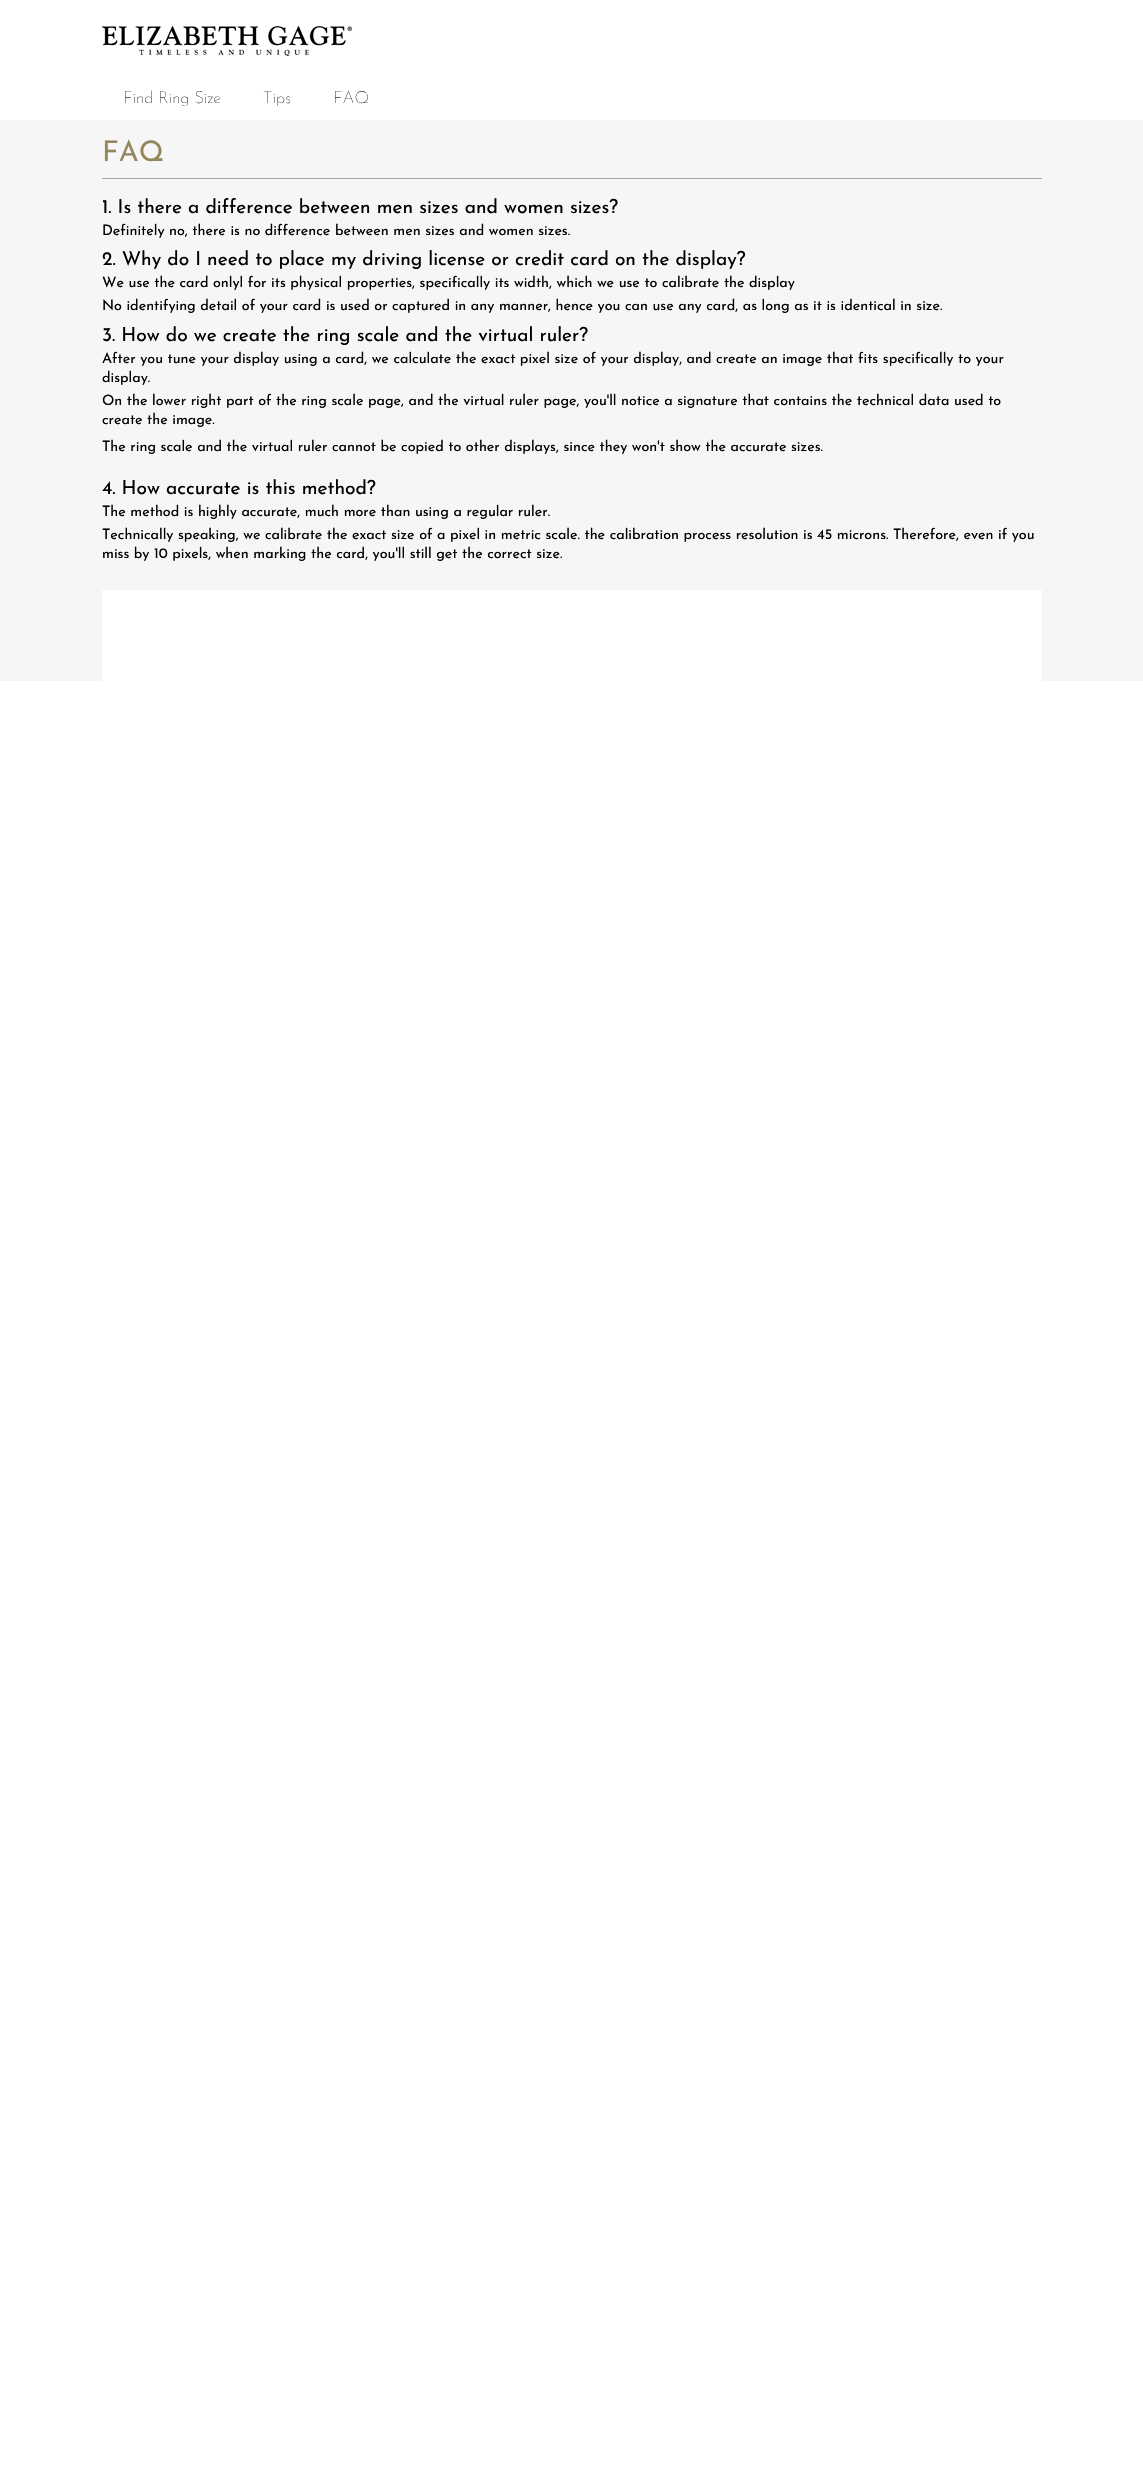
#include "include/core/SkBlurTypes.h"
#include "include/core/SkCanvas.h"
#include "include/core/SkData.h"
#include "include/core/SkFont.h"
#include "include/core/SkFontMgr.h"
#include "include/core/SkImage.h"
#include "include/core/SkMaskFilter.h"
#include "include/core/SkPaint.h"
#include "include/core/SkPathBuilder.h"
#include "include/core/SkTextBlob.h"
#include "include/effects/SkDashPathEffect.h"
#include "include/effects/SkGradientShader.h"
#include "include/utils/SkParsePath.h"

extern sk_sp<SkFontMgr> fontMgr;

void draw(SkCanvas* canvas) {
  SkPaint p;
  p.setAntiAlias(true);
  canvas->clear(SK_ColorWHITE);
  canvas->drawImageRect(SkImages::DeferredFromEncodedData(SkData::MakeFromFileName("images/1.png")), SkRect::MakeLTRB(102, 26, 352, 56), SkSamplingOptions());
  p.setColor(SkColorSetRGB(246, 246, 246));
  canvas->drawRect(SkRect::MakeLTRB(0, 120, 1143, 681), p);
  p.setColor(SkColorSetRGB(165, 165, 165));
  canvas->drawRect(SkRect::MakeLTRB(102, 178, 1042, 179), p);
  p.setColor(SK_ColorWHITE);
  canvas->drawRect(SkRect::MakeLTRB(102, 590, 1042, 681), p);
  SkFont font1(fontMgr->matchFamilyStyle("Josefin Sans", SkFontStyle(100, SkFontStyle::kNormal_Width, SkFontStyle::kUpright_Slant)), 16.75f);
  font1.setSubpixel(true);
  p.setColor(SK_ColorBLACK);
  canvas->drawString("Find Ring Size", 123, 103, font1, p);
  canvas->drawString("Tips", 263, 103, font1, p);
  canvas->drawString("FAQ", 333, 103, font1, p);
  SkFont font2(fontMgr->matchFamilyStyle("Josefin Sans", SkFontStyle::Normal()), 28.5f);
  font2.setSubpixel(true);
  p.setColor(SkColorSetRGB(147, 135, 92));
  canvas->drawString("FAQ", 102, 161, font2, p);
  SkFont font3(fontMgr->matchFamilyStyle("Josefin Sans", SkFontStyle::Normal()), 19.2f);
  font3.setSubpixel(true);
  p.setColor(SK_ColorBLACK);
  canvas->drawString("1. Is there a difference between men sizes and women sizes?", 102, 213, font3, p);
  SkFont font4(fontMgr->matchFamilyStyle("Josefin Sans", SkFontStyle::Normal()), 14.4f);
  font4.setSubpixel(true);
  canvas->drawString("Definitely no, there is no difference between men sizes and women sizes.", 102, 235, font4, p);
  canvas->drawString("2. Why do I need to place my driving license or credit card on the display?", 102, 265, font3, p);
  canvas->drawString("We use the card onlyl for its physical properties, specifically its width, which we use to calibrate the display", 102, 287, font4, p);
  canvas->drawString("No identifying detail of your card is used or captured in any manner, hence you can use any card, as long as it is identical in size.", 102, 310, font4, p);
  canvas->drawString("3. How do we create the ring scale and the virtual ruler?", 102, 341, font3, p);
  canvas->drawString("After you tune your display using a card, we calculate the exact pixel size of your display, and create an image that fits specifically to your", 102, 363, font4, p);
  canvas->drawString("display.", 102, 382, font4, p);
  canvas->drawString("On the lower right part of the ring scale page, and the virtual ruler page, you'll notice a signature that contains the technical data used to", 102, 405, font4, p);
  canvas->drawString("create the image.", 102, 424, font4, p);
  canvas->drawString("The ring scale and the virtual ruler cannot be copied to other displays, since they won't show the accurate sizes.", 102, 451, font4, p);
  canvas->drawString("4. How accurate is this method?", 102, 494, font3, p);
  canvas->drawString("The method is highly accurate, much more than using a regular ruler.", 102, 516, font4, p);
  canvas->drawString("Technically speaking, we calibrate the exact size of a pixel in metric scale. the calibration process resolution is 45 microns. Therefore, even if you", 102, 539, font4, p);
  canvas->drawString("miss by 10 pixels, when marking the card, you'll still get the correct size.", 102, 558, font4, p);
}
